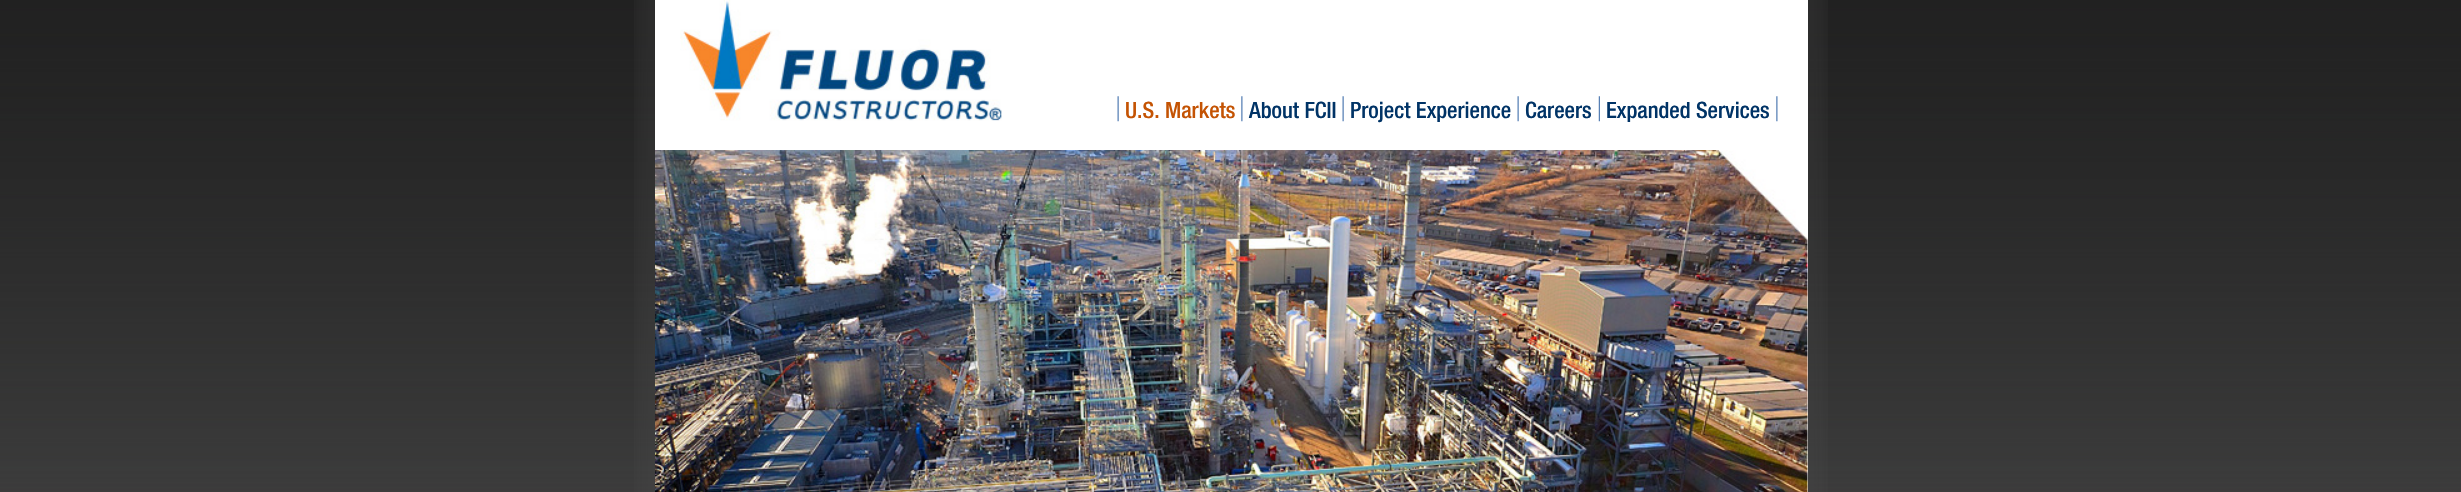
#include "include/core/SkBlurTypes.h"
#include "include/core/SkCanvas.h"
#include "include/core/SkData.h"
#include "include/core/SkFont.h"
#include "include/core/SkFontMgr.h"
#include "include/core/SkImage.h"
#include "include/core/SkMaskFilter.h"
#include "include/core/SkPaint.h"
#include "include/core/SkPathBuilder.h"
#include "include/core/SkTextBlob.h"
#include "include/effects/SkDashPathEffect.h"
#include "include/effects/SkGradientShader.h"
#include "include/utils/SkParsePath.h"

extern sk_sp<SkFontMgr> fontMgr;

void draw(SkCanvas* canvas) {
  SkPaint p;
  p.setAntiAlias(true);
  canvas->clear(SK_ColorWHITE);
  canvas->drawImageRect(SkImages::DeferredFromEncodedData(SkData::MakeFromFileName("images/1.png")), SkRect::MakeLTRB(0, 0, 2461, 492), SkSamplingOptions());
  canvas->drawImageRect(SkImages::DeferredFromEncodedData(SkData::MakeFromFileName("images/2.png")), SkRect::MakeLTRB(634, 0, 1828, 492), SkSamplingOptions());
  p.setColor(SK_ColorWHITE);
  canvas->drawRect(SkRect::MakeLTRB(655, 0, 1808, 492), p);
  canvas->drawImageRect(SkImages::DeferredFromEncodedData(SkData::MakeFromFileName("images/3.png")), SkRect::MakeLTRB(680, 0, 1002, 121), SkSamplingOptions());
  canvas->drawImageRect(SkImages::DeferredFromEncodedData(SkData::MakeFromFileName("images/4.png")), SkRect::MakeLTRB(1117, 96, 1119, 122), SkSamplingOptions());
  canvas->drawImageRect(SkImages::DeferredFromEncodedData(SkData::MakeFromFileName("images/5.png")), SkRect::MakeLTRB(1241, 96, 1243, 122), SkSamplingOptions());
  canvas->drawImageRect(SkImages::DeferredFromEncodedData(SkData::MakeFromFileName("images/4.png")), SkRect::MakeLTRB(1342, 96, 1344, 122), SkSamplingOptions());
  canvas->drawImageRect(SkImages::DeferredFromEncodedData(SkData::MakeFromFileName("images/4.png")), SkRect::MakeLTRB(1517, 96, 1519, 122), SkSamplingOptions());
  canvas->drawImageRect(SkImages::DeferredFromEncodedData(SkData::MakeFromFileName("images/6.png")), SkRect::MakeLTRB(1598, 96, 1600, 122), SkSamplingOptions());
  canvas->drawImageRect(SkImages::DeferredFromEncodedData(SkData::MakeFromFileName("images/5.png")), SkRect::MakeLTRB(1776, 96, 1778, 122), SkSamplingOptions());
  canvas->drawImageRect(SkImages::DeferredFromEncodedData(SkData::MakeFromFileName("images/7.png")), SkRect::MakeLTRB(655, 150, 1808, 492), SkSamplingOptions());
  SkFont font1(fontMgr->matchFamilyStyle("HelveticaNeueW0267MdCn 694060", SkFontStyle::Normal()), 22.5f);
  font1.setSubpixel(true);
  p.setColor(SkColorSetRGB(196, 83, 3));
  canvas->drawString("U.S. Markets", 1125, 118, font1, p);
  p.setColor(SkColorSetRGB(0, 51, 102));
  canvas->drawString("About FCII", 1249, 118, font1, p);
  canvas->drawString("Project Experience", 1350, 118, font1, p);
  canvas->drawString("Careers", 1525, 118, font1, p);
  canvas->drawString("Expanded Services", 1606, 118, font1, p);
}
